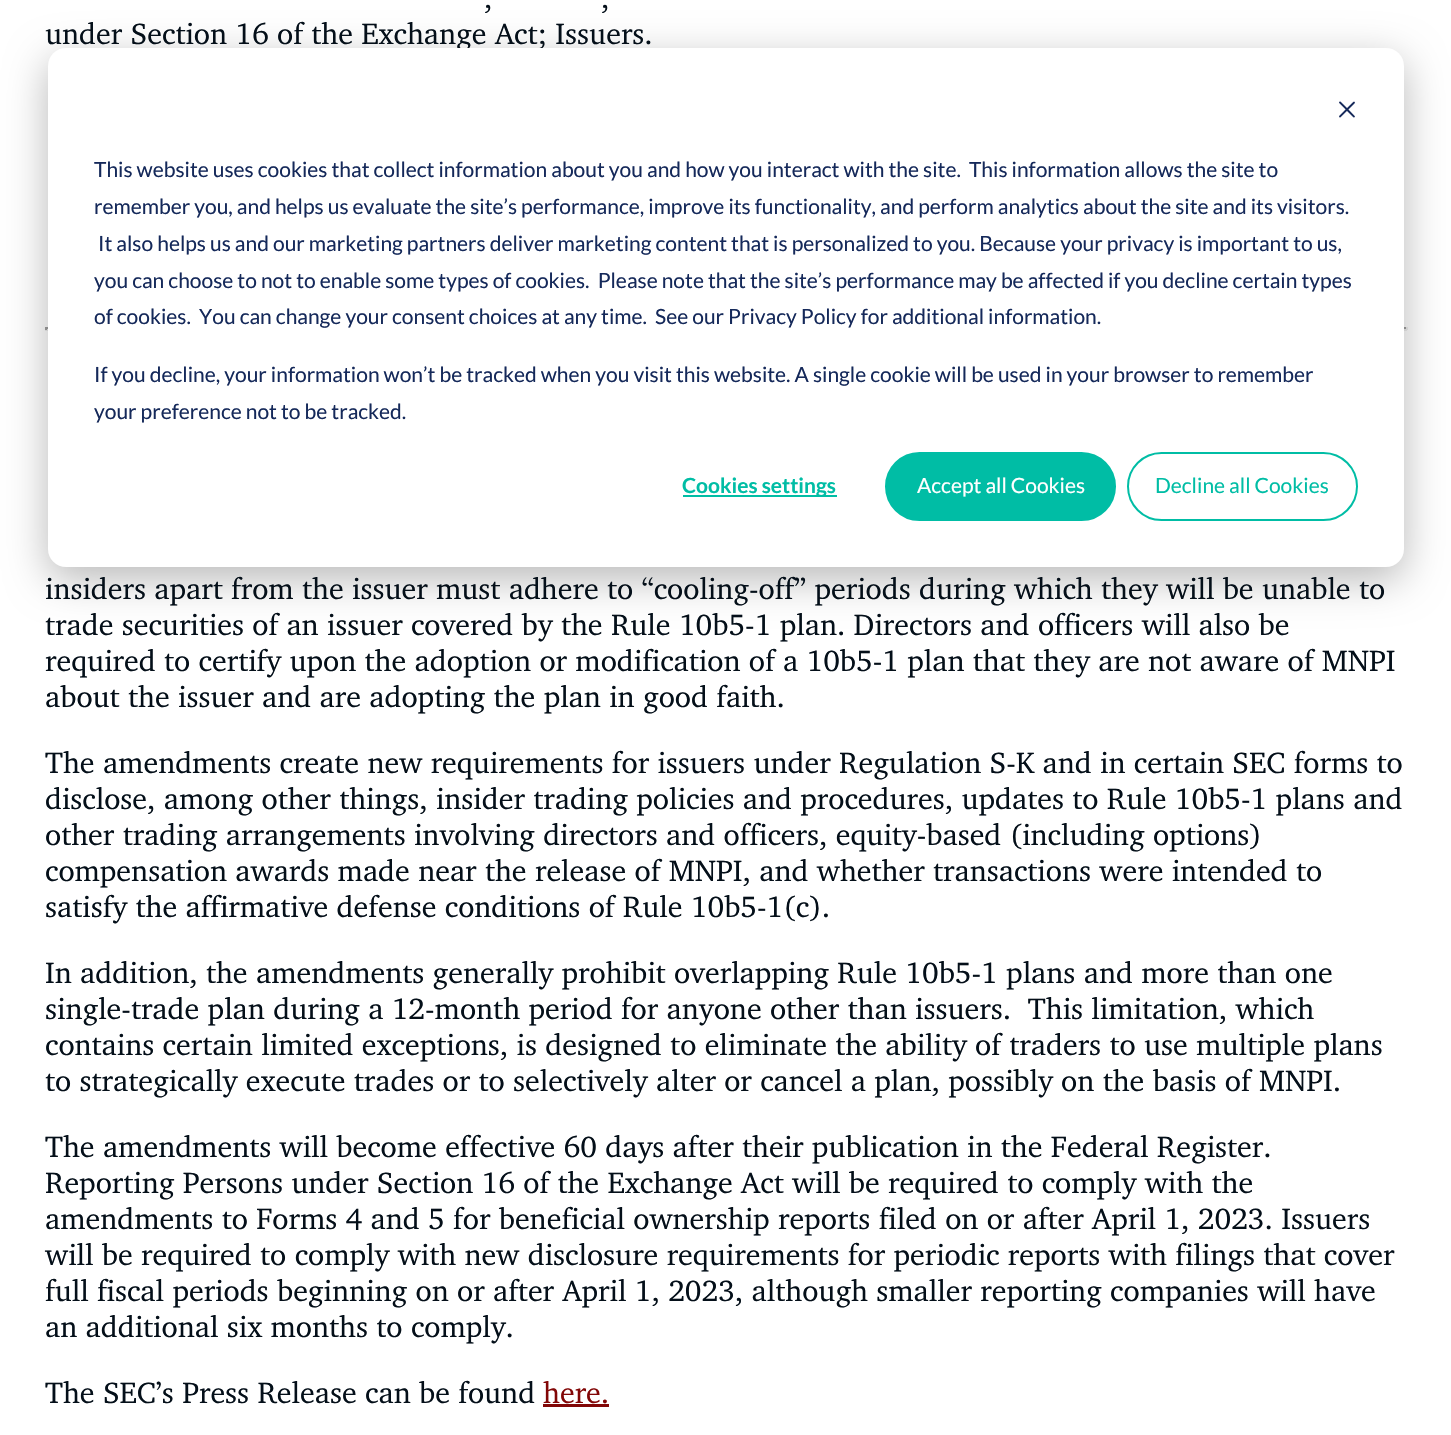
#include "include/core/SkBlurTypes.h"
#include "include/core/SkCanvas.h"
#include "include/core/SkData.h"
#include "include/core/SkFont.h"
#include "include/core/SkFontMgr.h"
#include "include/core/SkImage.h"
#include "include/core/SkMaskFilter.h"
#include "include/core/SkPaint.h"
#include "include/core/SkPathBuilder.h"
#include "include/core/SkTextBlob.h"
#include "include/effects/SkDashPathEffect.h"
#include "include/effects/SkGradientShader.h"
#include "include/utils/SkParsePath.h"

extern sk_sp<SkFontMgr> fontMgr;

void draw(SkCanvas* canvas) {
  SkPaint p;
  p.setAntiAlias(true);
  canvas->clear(SK_ColorWHITE);
  p.setColor(SkColorSetRGB(159, 159, 159));
  canvas->drawRect(SkRect::MakeLTRB(45, 327, 1407, 329), p);
  p.setColor(SkColorSetRGB(238, 238, 238));
  canvas->drawRect(SkRect::MakeLTRB(1406, 327, 1408, 330), p);
  canvas->drawRect(SkRect::MakeLTRB(45, 329, 1407, 331), p);
  p.setColor(SkColorSetRGB(159, 159, 159));
  canvas->drawRect(SkRect::MakeLTRB(45, 327, 47, 330), p);
  p.setColor(SkColorSetRGB(130, 7, 7));
  canvas->drawRect(SkRect::MakeLTRB(543, 1404, 609, 1407), p);
  p.setColor(SkColorSetARGB(71, 0, 0, 0));
  p.setMaskFilter(SkMaskFilter::MakeBlur(kNormal_SkBlurStyle, 21));
  canvas->drawRoundRect(SkRect::MakeLTRB(48, 60, 1404, 579), 18, 18, p);
  p.setMaskFilter(nullptr);
  SkFont font1(fontMgr->matchFamilyStyle("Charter", SkFontStyle::Normal()), 30);
  font1.setSubpixel(true);
  p.setColor(SkColorSetRGB(4, 15, 25));
  canvas->drawString(",", 484, 8, font1, p);
  canvas->drawString(",", 601, 8, font1, p);
  canvas->drawString("under Section 16 of the Exchange Act; Issuers.", 45, 44, font1, p);
  canvas->drawString("insiders apart from the issuer must adhere to “cooling-off” periods during which they will be unable to", 45, 599, font1, p);
  canvas->drawString("trade securities of an issuer covered by the Rule 10b5-1 plan. Directors and officers will also be", 45, 635, font1, p);
  canvas->drawString("required to certify upon the adoption or modification of a 10b5-1 plan that they are not aware of MNPI", 45, 671, font1, p);
  canvas->drawString("about the issuer and are adopting the plan in good faith.", 45, 707, font1, p);
  canvas->drawString("The amendments create new requirements for issuers under Regulation S-K and in certain SEC forms to", 45, 773, font1, p);
  canvas->drawString("disclose, among other things, insider trading policies and procedures, updates to Rule 10b5-1 plans and", 45, 809, font1, p);
  canvas->drawString("other trading arrangements involving directors and officers, equity-based (including options)", 45, 845, font1, p);
  canvas->drawString("compensation awards made near the release of MNPI, and whether transactions were intended to", 45, 881, font1, p);
  canvas->drawString("satisfy the affirmative defense conditions of Rule 10b5-1(c).", 45, 917, font1, p);
  canvas->drawString("In addition, the amendments generally prohibit overlapping Rule 10b5-1 plans and more than one", 45, 983, font1, p);
  canvas->drawString("single-trade plan during a 12-month period for anyone other than issuers.  This limitation, which", 45, 1019, font1, p);
  canvas->drawString("contains certain limited exceptions, is designed to eliminate the ability of traders to use multiple plans", 45, 1055, font1, p);
  canvas->drawString("to strategically execute trades or to selectively alter or cancel a plan, possibly on the basis of MNPI.", 45, 1091, font1, p);
  canvas->drawString("The amendments will become effective 60 days after their publication in the Federal Register.", 45, 1157, font1, p);
  canvas->drawString("Reporting Persons under Section 16 of the Exchange Act will be required to comply with the", 45, 1193, font1, p);
  canvas->drawString("amendments to Forms 4 and 5 for beneficial ownership reports filed on or after April 1, 2023. Issuers", 45, 1229, font1, p);
  canvas->drawString("will be required to comply with new disclosure requirements for periodic reports with filings that cover", 45, 1265, font1, p);
  canvas->drawString("full fiscal periods beginning on or after April 1, 2023, although smaller reporting companies will have", 45, 1301, font1, p);
  canvas->drawString("an additional six months to comply.", 45, 1337, font1, p);
  canvas->drawString("The SEC’s Press Release can be found", 45, 1403, font1, p);
  p.setColor(SkColorSetRGB(130, 7, 7));
  canvas->drawString("here.", 543, 1403, font1, p);
  p.setColor(SK_ColorWHITE);
  canvas->drawRoundRect(SkRect::MakeLTRB(48, 48, 1404, 567), 18, 18, p);
  canvas->drawImageRect(SkImages::DeferredFromEncodedData(SkData::MakeFromFileName("images/1.png")), SkRect::MakeLTRB(1339, 101, 1355, 118), SkSamplingOptions());
  SkFont font2(fontMgr->matchFamilyStyle("Lato", SkFontStyle::Normal()), 21);
  font2.setSubpixel(true);
  p.setColor(SkColorSetRGB(21, 41, 90));
  canvas->drawString("This website uses cookies that collect information about you and how you interact with the site.  This information allows the site to", 94, 177, font2, p);
  canvas->drawString("remember you, and helps us evaluate the site’s performance, improve its functionality, and perform analytics about the site and its visitors.", 94, 214, font2, p);
  canvas->drawString("It also helps us and our marketing partners deliver marketing content that is personalized to you. Because your privacy is important to us,", 98, 251, font2, p);
  canvas->drawString("you can choose to not to enable some types of cookies.  Please note that the site’s performance may be affected if you decline certain types", 94, 288, font2, p);
  canvas->drawString("of cookies.  You can change your consent choices at any time.  See our Privacy Policy for additional information.", 94, 324, font2, p);
  canvas->drawString("If you decline, your information won’t be tracked when you visit this website. A single cookie will be used in your browser to remember", 94, 382, font2, p);
  canvas->drawString("your preference not to be tracked.", 94, 419, font2, p);
  p.setColor(SkColorSetRGB(0, 189, 165));
  canvas->drawRect(SkRect::MakeLTRB(683, 495, 837, 497), p);
  SkFont font3(fontMgr->matchFamilyStyle("Lato", SkFontStyle::Bold()), 21);
  font3.setSubpixel(true);
  canvas->drawString("Cookies settings", 682, 493, font3, p);
  canvas->drawRoundRect(SkRect::MakeLTRB(886, 453, 1115, 520), 33.5f, 33.5f, p);
  p.setStyle(SkPaint::kStroke_Style);
  p.setStrokeWidth(2);
  canvas->drawRoundRect(SkRect::MakeLTRB(886, 453, 1115, 520), 33.5f, 33.5f, p);
  p.setStyle(SkPaint::kFill_Style);
  p.setColor(SK_ColorWHITE);
  canvas->drawString("Accept all Cookies", 917, 493, font2, p);
  p.setStyle(SkPaint::kStroke_Style);
  p.setColor(SkColorSetRGB(0, 189, 165));
  canvas->drawRoundRect(SkRect::MakeLTRB(1128, 453, 1357, 520), 33.5f, 33.5f, p);
  p.setStyle(SkPaint::kFill_Style);
  canvas->drawString("Decline all Cookies", 1155, 493, font2, p);
}
